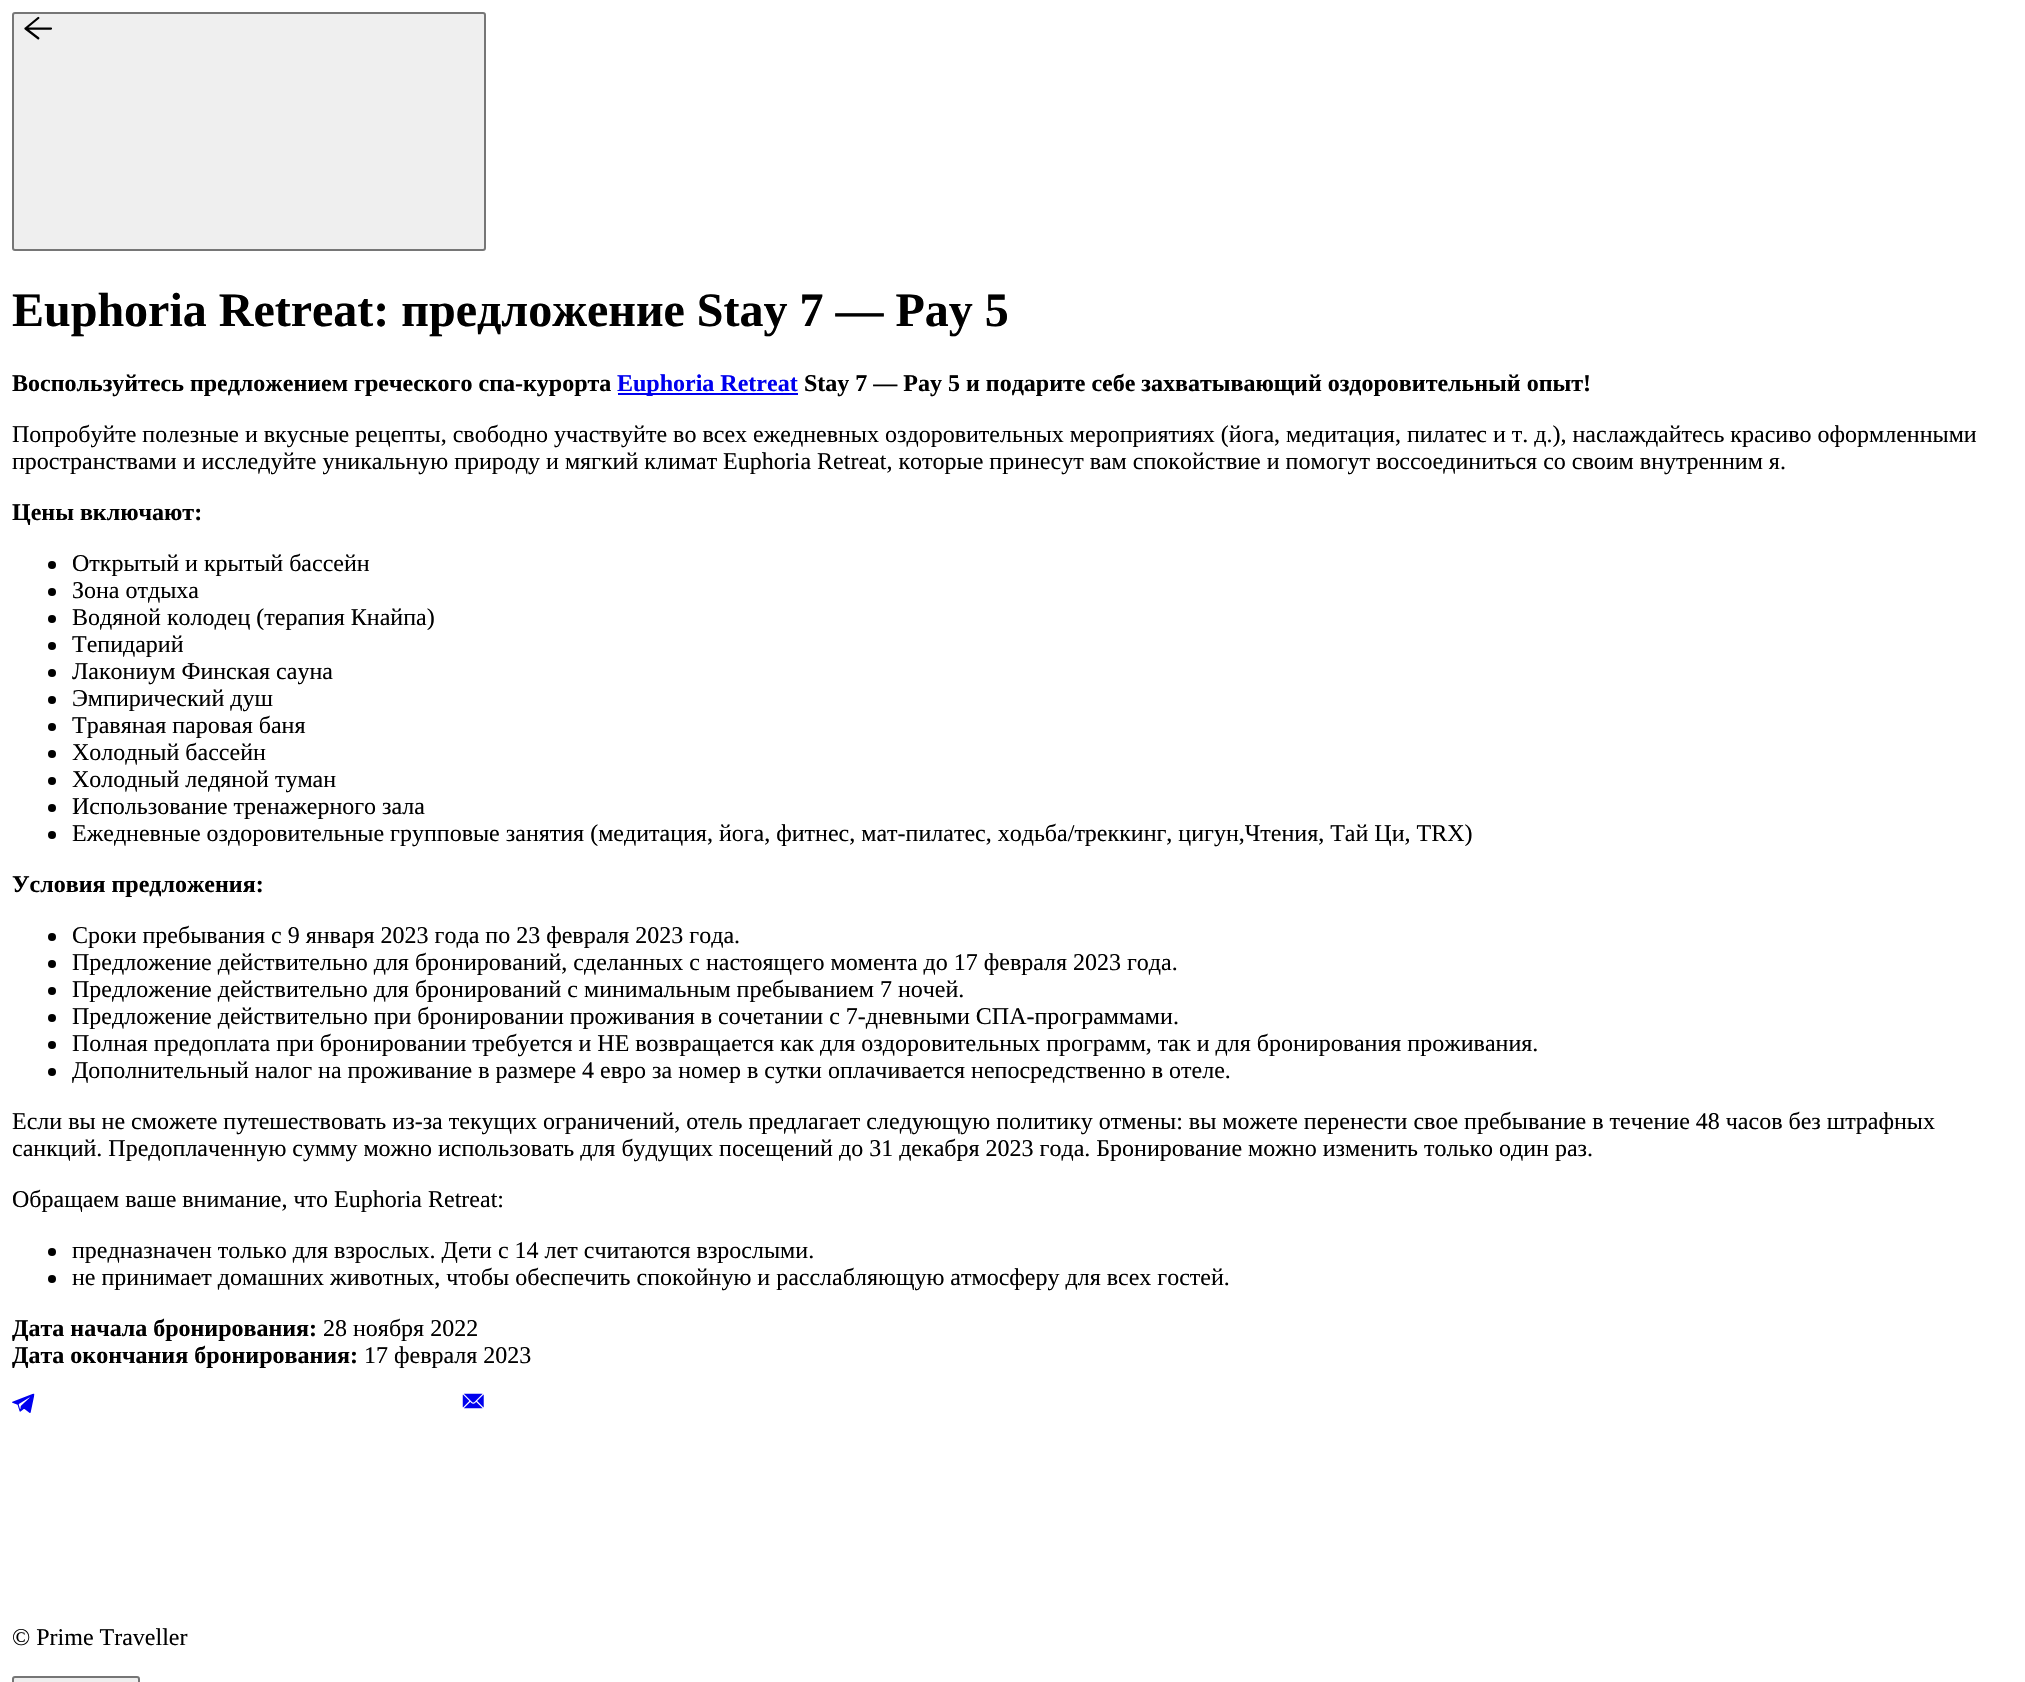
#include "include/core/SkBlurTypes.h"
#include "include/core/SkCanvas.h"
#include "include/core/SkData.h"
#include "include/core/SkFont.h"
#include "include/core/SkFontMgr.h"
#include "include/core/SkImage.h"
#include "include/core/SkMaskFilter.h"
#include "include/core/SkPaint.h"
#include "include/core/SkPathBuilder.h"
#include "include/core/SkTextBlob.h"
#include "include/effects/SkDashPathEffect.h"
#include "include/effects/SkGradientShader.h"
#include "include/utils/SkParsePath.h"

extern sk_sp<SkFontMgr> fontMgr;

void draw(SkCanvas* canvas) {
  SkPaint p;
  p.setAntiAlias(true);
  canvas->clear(SK_ColorWHITE);
  p.setColor(SkColorSetRGB(239, 239, 239));
  canvas->drawRoundRect(SkRect::MakeLTRB(13, 13, 485, 250), 2, 2, p);
  p.setStyle(SkPaint::kStroke_Style);
  p.setStrokeWidth(2);
  p.setColor(SkColorSetRGB(118, 118, 118));
  canvas->drawRoundRect(SkRect::MakeLTRB(13, 13, 485, 250), 2, 2, p);
  canvas->drawImageRect(SkImages::DeferredFromEncodedData(SkData::MakeFromFileName("images/1.png")), SkRect::MakeLTRB(24, 16, 52, 40), SkSamplingOptions());
  p.setStyle(SkPaint::kFill_Style);
  p.setColor(SkColorSetRGB(0, 0, 238));
  canvas->drawRect(SkRect::MakeLTRB(618, 393, 798, 395), p);
  p.setColor(SK_ColorBLACK);
  canvas->drawCircle(52, 565, 4, p);
  canvas->drawCircle(52, 592, 4, p);
  canvas->drawCircle(52, 619, 4, p);
  canvas->drawCircle(52, 646, 4, p);
  canvas->drawCircle(52, 673, 4, p);
  canvas->drawCircle(52, 700, 4, p);
  canvas->drawCircle(52, 727, 4, p);
  canvas->drawCircle(52, 754, 4, p);
  canvas->drawCircle(52, 781, 4, p);
  canvas->drawCircle(52, 808, 4, p);
  canvas->drawCircle(52, 835, 4, p);
  canvas->drawCircle(52, 937, 4, p);
  canvas->drawCircle(52, 964, 4, p);
  canvas->drawCircle(52, 991, 4, p);
  canvas->drawCircle(52, 1018, 4, p);
  canvas->drawCircle(52, 1045, 4, p);
  canvas->drawCircle(52, 1072, 4, p);
  canvas->drawCircle(52, 1252, 4, p);
  canvas->drawCircle(52, 1279, 4, p);
  canvas->drawImageRect(SkImages::DeferredFromEncodedData(SkData::MakeFromFileName("images/2.png")), SkRect::MakeLTRB(12, 1393, 35, 1413), SkSamplingOptions());
  canvas->drawImageRect(SkImages::DeferredFromEncodedData(SkData::MakeFromFileName("images/3.png")), SkRect::MakeLTRB(462, 1393, 484, 1409), SkSamplingOptions());
  p.setColor(SkColorSetRGB(239, 239, 239));
  canvas->drawRoundRect(SkRect::MakeLTRB(13, 1677, 139, 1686), 2, 2, p);
  p.setStyle(SkPaint::kStroke_Style);
  p.setColor(SkColorSetRGB(118, 118, 118));
  canvas->drawRoundRect(SkRect::MakeLTRB(13, 1677, 139, 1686), 2, 2, p);
  SkFont font1(fontMgr->matchFamilyStyle("Liberation Serif", SkFontStyle::Bold()), 48);
  font1.setSubpixel(true);
  p.setStyle(SkPaint::kFill_Style);
  p.setColor(SK_ColorBLACK);
  canvas->drawString("Euphoria Retreat: предложение Stay 7 — Pay 5", 12, 326, font1, p);
  SkFont font2(fontMgr->matchFamilyStyle("Liberation Serif", SkFontStyle::Bold()), 24);
  font2.setSubpixel(true);
  canvas->drawString("Воспользуйтесь предложением греческого спа-курорта", 12, 391, font2, p);
  p.setColor(SkColorSetRGB(0, 0, 238));
  canvas->drawString("Euphoria Retreat", 617, 391, font2, p);
  p.setColor(SK_ColorBLACK);
  canvas->drawString("Stay 7 — Pay 5 и подарите себе захватывающий оздоровительный опыт!", 804, 391, font2, p);
  SkFont font3(fontMgr->matchFamilyStyle("Liberation Serif", SkFontStyle::Normal()), 24);
  font3.setSubpixel(true);
  canvas->drawString("Попробуйте полезные и вкусные рецепты, свободно участвуйте во всех ежедневных оздоровительных мероприятиях (йога, медитация, пилатес и т. д.), наслаждайтесь красиво оформленными", 12, 442, font3, p);
  canvas->drawString("пространствами и исследуйте уникальную природу и мягкий климат Euphoria Retreat, которые принесут вам спокойствие и помогут воссоединиться со своим внутренним я.", 12, 469, font3, p);
  canvas->drawString("Цены включают:", 12, 520, font2, p);
  canvas->drawString("Открытый и крытый бассейн", 72, 571, font3, p);
  canvas->drawString("Зона отдыха", 72, 598, font3, p);
  canvas->drawString("Водяной колодец (терапия Кнайпа)", 72, 625, font3, p);
  canvas->drawString("Тепидарий", 72, 652, font3, p);
  canvas->drawString("Лакониум Финская сауна", 72, 679, font3, p);
  canvas->drawString("Эмпирический душ", 72, 706, font3, p);
  canvas->drawString("Травяная паровая баня", 72, 733, font3, p);
  canvas->drawString("Холодный бассейн", 72, 760, font3, p);
  canvas->drawString("Холодный ледяной туман", 72, 787, font3, p);
  canvas->drawString("Использование тренажерного зала", 72, 814, font3, p);
  canvas->drawString("Ежедневные оздоровительные групповые занятия (медитация, йога, фитнес, мат-пилатес, ходьба/треккинг, цигун,Чтения, Тай Ци, TRX)", 72, 841, font3, p);
  canvas->drawString("Условия предложения:", 12, 892, font2, p);
  canvas->drawString("Сроки пребывания с 9 января 2023 года по 23 февраля 2023 года.", 72, 943, font3, p);
  canvas->drawString("Предложение действительно для бронирований, сделанных с настоящего момента до 17 февраля 2023 года.", 72, 970, font3, p);
  canvas->drawString("Предложение действительно для бронирований с минимальным пребыванием 7 ночей.", 72, 997, font3, p);
  canvas->drawString("Предложение действительно при бронировании проживания в сочетании с 7-дневными СПА-программами.", 72, 1024, font3, p);
  canvas->drawString("Полная предоплата при бронировании требуется и НЕ возвращается как для оздоровительных программ, так и для бронирования проживания.", 72, 1051, font3, p);
  canvas->drawString("Дополнительный налог на проживание в размере 4 евро за номер в сутки оплачивается непосредственно в отеле.", 72, 1078, font3, p);
  canvas->drawString("Если вы не сможете путешествовать из-за текущих ограничений, отель предлагает следующую политику отмены: вы можете перенести свое пребывание в течение 48 часов без штрафных", 12, 1129, font3, p);
  canvas->drawString("санкций. Предоплаченную сумму можно использовать для будущих посещений до 31 декабря 2023 года. Бронирование можно изменить только один раз.", 12, 1156, font3, p);
  canvas->drawString("Обращаем ваше внимание, что Euphoria Retreat:", 12, 1207, font3, p);
  canvas->drawString("предназначен только для взрослых. Дети с 14 лет считаются взрослыми.", 72, 1258, font3, p);
  canvas->drawString("не принимает домашних животных, чтобы обеспечить спокойную и расслабляющую атмосферу для всех гостей.", 72, 1285, font3, p);
  canvas->drawString("Дата начала бронирования:", 12, 1336, font2, p);
  canvas->drawString("28 ноября 2022", 323, 1336, font3, p);
  canvas->drawString("Дата окончания бронирования:", 12, 1363, font2, p);
  canvas->drawString("17 февраля 2023", 364, 1363, font3, p);
  canvas->drawString("© Prime Traveller", 12, 1645, font3, p);
}
